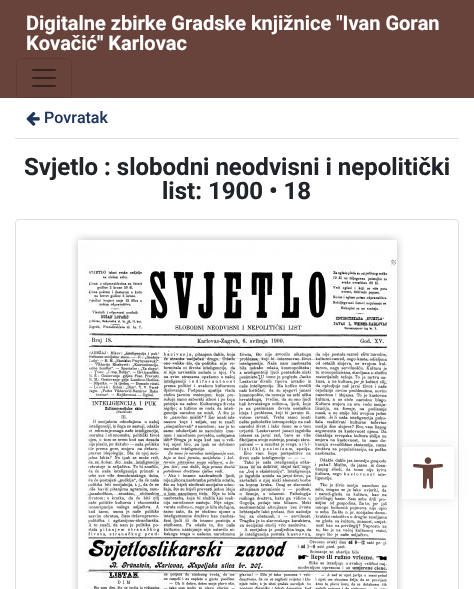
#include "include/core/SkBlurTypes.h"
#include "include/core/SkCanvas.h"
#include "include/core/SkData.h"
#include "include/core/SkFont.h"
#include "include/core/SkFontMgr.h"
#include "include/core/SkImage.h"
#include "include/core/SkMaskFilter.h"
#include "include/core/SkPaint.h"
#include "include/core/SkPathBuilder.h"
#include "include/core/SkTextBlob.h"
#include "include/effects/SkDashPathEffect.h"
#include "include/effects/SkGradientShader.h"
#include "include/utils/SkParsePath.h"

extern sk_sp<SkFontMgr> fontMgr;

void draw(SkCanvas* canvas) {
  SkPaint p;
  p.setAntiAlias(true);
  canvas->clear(SK_ColorWHITE);
  p.setColor(SkColorSetRGB(103, 67, 59));
  canvas->drawRect(SkRect::MakeLTRB(0, 0, 474, 98), p);
  p.setStyle(SkPaint::kStroke_Style);
  p.setStrokeWidth(1);
  p.setColor(SkColorSetRGB(93, 60, 53));
  canvas->drawRoundRect(SkRect::MakeLTRB(16.5f, 58.5f, 71.5f, 97.5f), 3.5f, 3.5f, p);
  canvas->drawImageRect(SkImages::DeferredFromEncodedData(SkData::MakeFromFileName("images/1.png")), SkRect::MakeLTRB(32, 69, 56, 87), SkSamplingOptions());
  p.setStyle(SkPaint::kFill_Style);
  p.setColor(SkColorSetRGB(223, 223, 223));
  canvas->drawRect(SkRect::MakeLTRB(15, 138, 459, 139), p);
  canvas->drawImageRect(SkImages::DeferredFromEncodedData(SkData::MakeFromFileName("images/2.png")), SkRect::MakeLTRB(26, 111, 40, 126), SkSamplingOptions());
  p.setStyle(SkPaint::kStroke_Style);
  canvas->drawRoundRect(SkRect::MakeLTRB(15.5f, 219.5f, 458.5f, 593.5f), 3.5f, 3.5f, p);
  canvas->drawImageRect(SkImages::DeferredFromEncodedData(SkData::MakeFromFileName("images/3.png")), SkRect::MakeLTRB(71, 233, 404, 589), SkSamplingOptions());
  p.setStyle(SkPaint::kFill_Style);
  p.setColor(SkColorSetARGB(26, 0, 0, 0));
  p.setMaskFilter(SkMaskFilter::MakeBlur(kNormal_SkBlurStyle, 5));
  canvas->drawRect(SkRect::MakeLTRB(402, 447, 454, 499), p);
  p.setMaskFilter(nullptr);
  p.setColor(SK_ColorWHITE);
  canvas->drawRect(SkRect::MakeLTRB(402, 447, 454, 499), p);
  canvas->drawImageRect(SkImages::DeferredFromEncodedData(SkData::MakeFromFileName("images/4.png")), SkRect::MakeLTRB(413, 457, 443, 489), SkSamplingOptions());
  SkFont font1(fontMgr->matchFamilyStyle("Roboto", SkFontStyle::Bold()), 20);
  font1.setSubpixel(true);
  canvas->drawString("Digitalne zbirke Gradske knjižnice \"Ivan Goran", 26, 30, font1, p);
  canvas->drawString("Kovačić\" Karlovac", 26, 50, font1, p);
  SkFont font2(fontMgr->matchFamilyStyle("Roboto", SkFontStyle(500, SkFontStyle::kNormal_Width, SkFontStyle::kUpright_Slant)), 16);
  font2.setSubpixel(true);
  p.setColor(SkColorSetRGB(31, 54, 92));
  canvas->drawString("Povratak", 44, 123, font2, p);
  SkFont font3(fontMgr->matchFamilyStyle("Roboto", SkFontStyle::Bold()), 24);
  font3.setSubpixel(true);
  p.setColor(SkColorSetRGB(33, 37, 41));
  canvas->drawString("Svjetlo : slobodni neodvisni i nepolitički", 24, 175, font3, p);
  canvas->drawString("list: 1900 • 18", 162, 199, font3, p);
}
